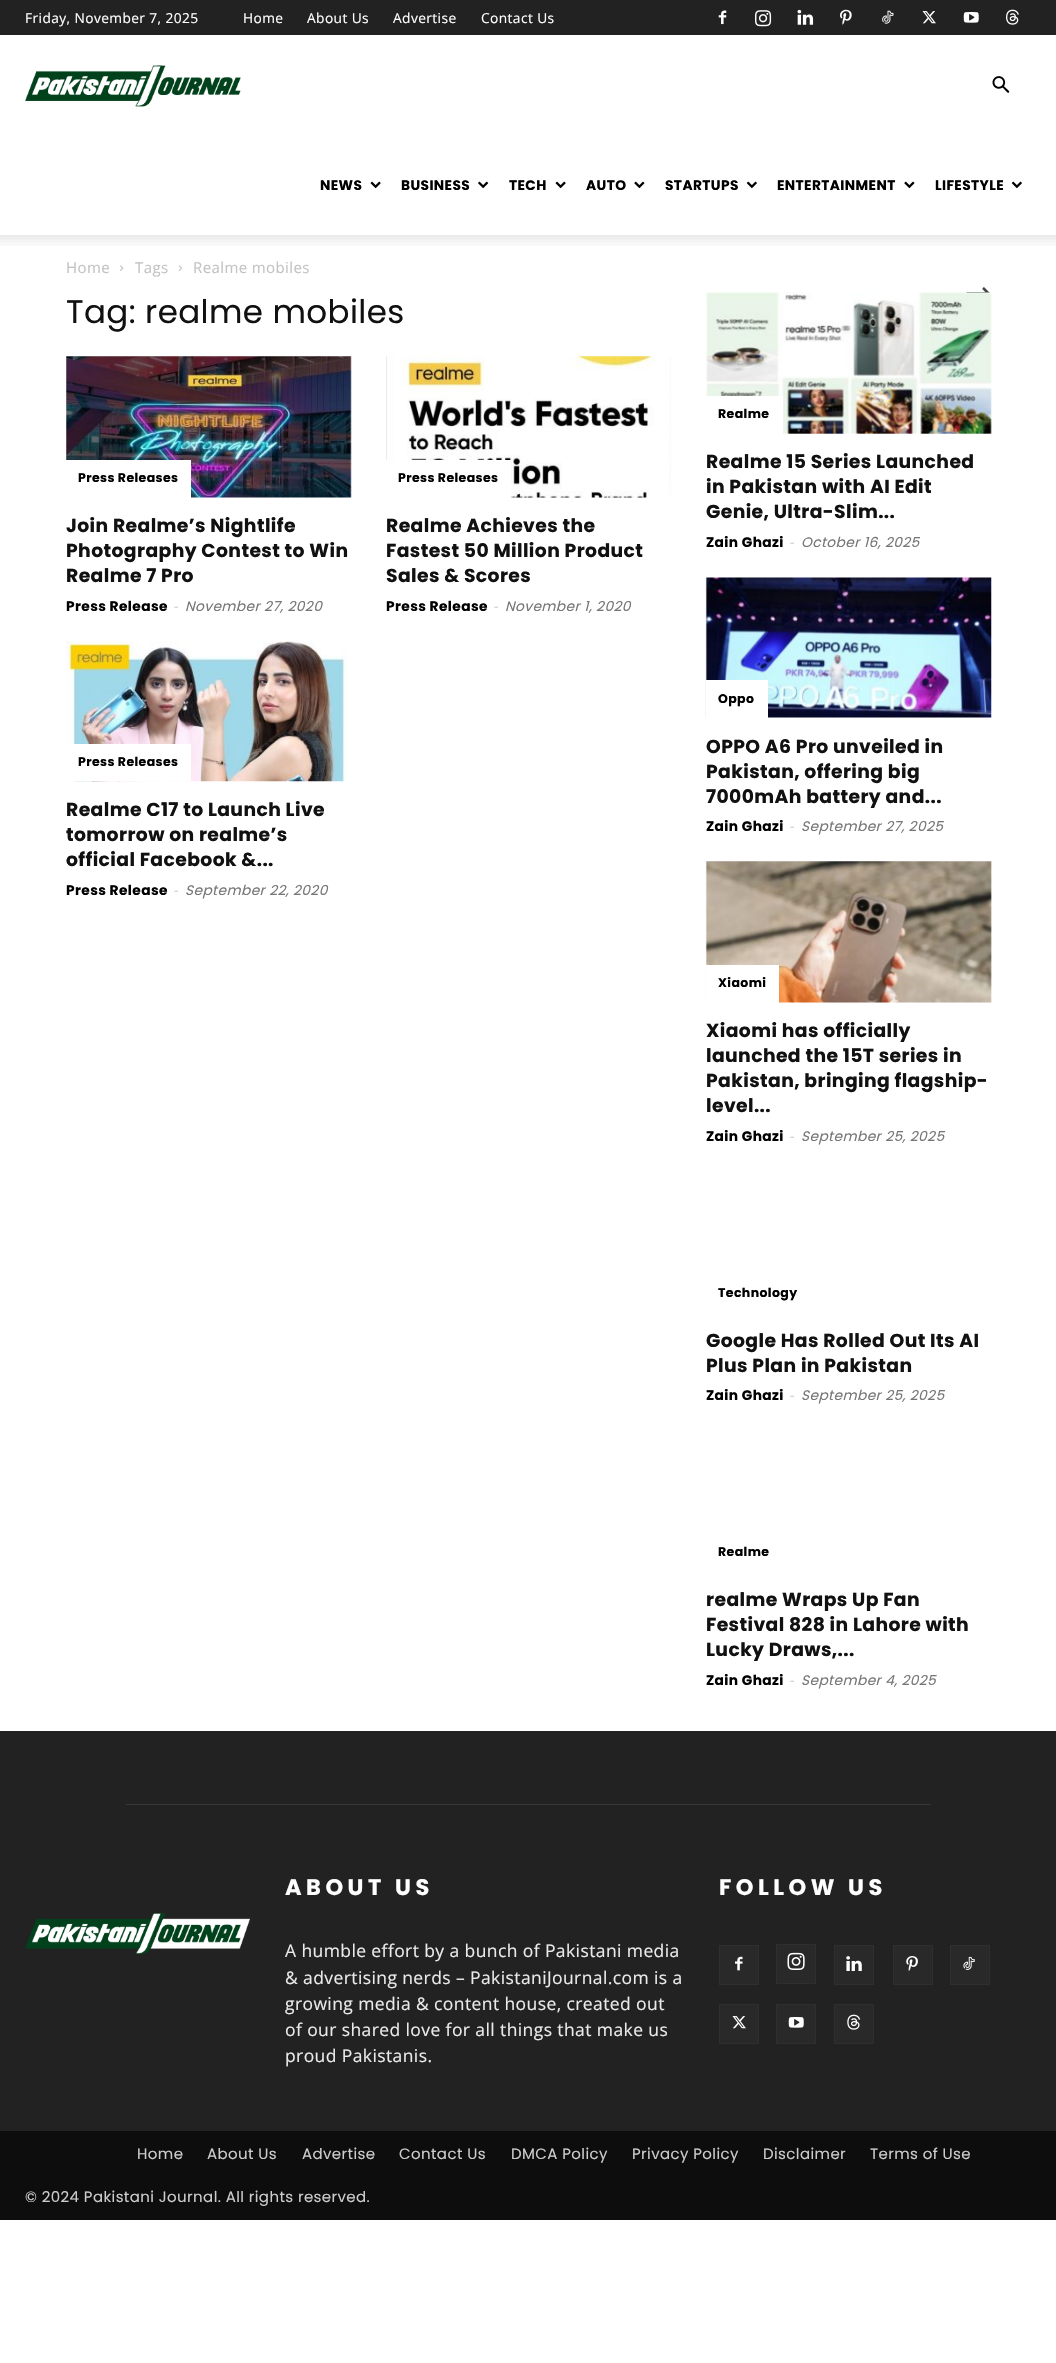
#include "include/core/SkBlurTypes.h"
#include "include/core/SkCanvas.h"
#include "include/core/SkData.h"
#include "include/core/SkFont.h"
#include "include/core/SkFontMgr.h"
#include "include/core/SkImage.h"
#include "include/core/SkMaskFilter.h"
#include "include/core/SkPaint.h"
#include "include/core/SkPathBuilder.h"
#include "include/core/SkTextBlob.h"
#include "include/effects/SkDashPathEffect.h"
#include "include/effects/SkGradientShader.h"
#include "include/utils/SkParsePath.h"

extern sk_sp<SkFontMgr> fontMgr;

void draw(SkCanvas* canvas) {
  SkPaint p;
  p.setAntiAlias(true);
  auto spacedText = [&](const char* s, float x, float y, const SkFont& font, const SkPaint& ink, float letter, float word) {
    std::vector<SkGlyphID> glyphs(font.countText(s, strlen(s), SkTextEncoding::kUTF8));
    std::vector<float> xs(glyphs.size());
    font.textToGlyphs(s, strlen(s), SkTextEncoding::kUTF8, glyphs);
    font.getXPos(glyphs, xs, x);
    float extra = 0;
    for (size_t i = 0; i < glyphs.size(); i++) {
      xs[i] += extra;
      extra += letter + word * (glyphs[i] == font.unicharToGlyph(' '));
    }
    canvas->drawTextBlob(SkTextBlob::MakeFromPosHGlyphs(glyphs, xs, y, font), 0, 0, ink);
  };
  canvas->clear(SK_ColorWHITE);
  p.setColor(SkColorSetRGB(34, 34, 34));
  canvas->drawRect(SkRect::MakeLTRB(0, 0, 1056, 35), p);
  canvas->drawImageRect(SkImages::DeferredFromEncodedData(SkData::MakeFromFileName("images/1.png")), SkRect::MakeLTRB(718, 10, 727, 25), SkSamplingOptions());
  canvas->drawImageRect(SkImages::DeferredFromEncodedData(SkData::MakeFromFileName("images/2.png")), SkRect::MakeLTRB(755, 10, 772, 27), SkSamplingOptions());
  canvas->drawImageRect(SkImages::DeferredFromEncodedData(SkData::MakeFromFileName("images/3.png")), SkRect::MakeLTRB(797, 9, 814, 25), SkSamplingOptions());
  canvas->drawImageRect(SkImages::DeferredFromEncodedData(SkData::MakeFromFileName("images/4.png")), SkRect::MakeLTRB(840, 9, 852, 25), SkSamplingOptions());
  canvas->drawImageRect(SkImages::DeferredFromEncodedData(SkData::MakeFromFileName("images/5.png")), SkRect::MakeLTRB(882, 10, 894, 24), SkSamplingOptions());
  canvas->drawImageRect(SkImages::DeferredFromEncodedData(SkData::MakeFromFileName("images/6.png")), SkRect::MakeLTRB(922, 11, 936, 24), SkSamplingOptions());
  canvas->drawImageRect(SkImages::DeferredFromEncodedData(SkData::MakeFromFileName("images/7.png")), SkRect::MakeLTRB(963, 12, 979, 23), SkSamplingOptions());
  canvas->drawImageRect(SkImages::DeferredFromEncodedData(SkData::MakeFromFileName("images/8.png")), SkRect::MakeLTRB(1006, 9, 1019, 25), SkSamplingOptions());
  canvas->drawImageRect(SkImages::DeferredFromEncodedData(SkData::MakeFromFileName("images/9.png")), SkRect::MakeLTRB(992, 76, 1010, 93), SkSamplingOptions());
  canvas->drawImageRect(SkImages::DeferredFromEncodedData(SkData::MakeFromFileName("images/10.png")), SkRect::MakeLTRB(25, 65, 241, 107), SkSamplingOptions());
  canvas->drawImageRect(SkImages::DeferredFromEncodedData(SkData::MakeFromFileName("images/11.png")), SkRect::MakeLTRB(370, 181, 381, 189), SkSamplingOptions());
  canvas->drawImageRect(SkImages::DeferredFromEncodedData(SkData::MakeFromFileName("images/12.png")), SkRect::MakeLTRB(478, 181, 489, 189), SkSamplingOptions());
  canvas->drawImageRect(SkImages::DeferredFromEncodedData(SkData::MakeFromFileName("images/11.png")), SkRect::MakeLTRB(555, 181, 566, 189), SkSamplingOptions());
  canvas->drawImageRect(SkImages::DeferredFromEncodedData(SkData::MakeFromFileName("images/13.png")), SkRect::MakeLTRB(634, 181, 645, 189), SkSamplingOptions());
  canvas->drawImageRect(SkImages::DeferredFromEncodedData(SkData::MakeFromFileName("images/14.png")), SkRect::MakeLTRB(746, 181, 757, 189), SkSamplingOptions());
  canvas->drawImageRect(SkImages::DeferredFromEncodedData(SkData::MakeFromFileName("images/13.png")), SkRect::MakeLTRB(904, 181, 915, 189), SkSamplingOptions());
  canvas->drawImageRect(SkImages::DeferredFromEncodedData(SkData::MakeFromFileName("images/14.png")), SkRect::MakeLTRB(1011, 181, 1022, 189), SkSamplingOptions());
  canvas->drawImageRect(SkImages::DeferredFromEncodedData(SkData::MakeFromFileName("images/15.png")), SkRect::MakeLTRB(0, 235, 1056, 246), SkSamplingOptions());
  canvas->drawImageRect(SkImages::DeferredFromEncodedData(SkData::MakeFromFileName("images/16.png")), SkRect::MakeLTRB(120, 265, 124, 271), SkSamplingOptions());
  canvas->drawImageRect(SkImages::DeferredFromEncodedData(SkData::MakeFromFileName("images/17.png")), SkRect::MakeLTRB(178, 265, 182, 271), SkSamplingOptions());
  canvas->drawImageRect(SkImages::DeferredFromEncodedData(SkData::MakeFromFileName("images/18.png")), SkRect::MakeLTRB(66, 356, 352, 498), SkSamplingOptions());
  p.setColor(SK_ColorWHITE);
  canvas->drawRect(SkRect::MakeLTRB(66, 460, 191, 498), p);
  canvas->drawImageRect(SkImages::DeferredFromEncodedData(SkData::MakeFromFileName("images/19.png")), SkRect::MakeLTRB(386, 356, 671, 498), SkSamplingOptions());
  canvas->drawRect(SkRect::MakeLTRB(386, 460, 511, 498), p);
  canvas->drawImageRect(SkImages::DeferredFromEncodedData(SkData::MakeFromFileName("images/20.png")), SkRect::MakeLTRB(66, 641, 348, 782), SkSamplingOptions());
  canvas->drawRect(SkRect::MakeLTRB(66, 744, 191, 781), p);
  canvas->drawImageRect(SkImages::DeferredFromEncodedData(SkData::MakeFromFileName("images/21.png")), SkRect::MakeLTRB(966, 287, 990, 293), SkSamplingOptions());
  canvas->drawImageRect(SkImages::DeferredFromEncodedData(SkData::MakeFromFileName("images/22.png")), SkRect::MakeLTRB(706, 292, 992, 434), SkSamplingOptions());
  canvas->drawRect(SkRect::MakeLTRB(706, 396, 783, 434), p);
  canvas->drawImageRect(SkImages::DeferredFromEncodedData(SkData::MakeFromFileName("images/23.png")), SkRect::MakeLTRB(705, 577, 992, 718), SkSamplingOptions());
  canvas->drawRect(SkRect::MakeLTRB(706, 680, 768, 718), p);
  canvas->drawImageRect(SkImages::DeferredFromEncodedData(SkData::MakeFromFileName("images/24.png")), SkRect::MakeLTRB(705, 861, 992, 1003), SkSamplingOptions());
  canvas->drawRect(SkRect::MakeLTRB(706, 965, 779, 1003), p);
  p.setColor(SkColorSetRGB(34, 34, 34));
  canvas->drawRect(SkRect::MakeLTRB(0, 1731, 1056, 2131), p);
  p.setColor(SkColorSetRGB(56, 56, 56));
  canvas->drawRect(SkRect::MakeLTRB(126, 1804, 931, 1805), p);
  p.setColor(SkColorSetRGB(41, 41, 41));
  canvas->drawRect(SkRect::MakeLTRB(720, 1946, 758, 1984), p);
  canvas->drawImageRect(SkImages::DeferredFromEncodedData(SkData::MakeFromFileName("images/25.png")), SkRect::MakeLTRB(735, 1956, 743, 1971), SkSamplingOptions());
  p.setStyle(SkPaint::kStroke_Style);
  p.setStrokeWidth(1);
  p.setColor(SkColorSetRGB(47, 47, 47));
  canvas->drawRect(SkRect::MakeLTRB(719.5f, 1945.5f, 758.5f, 1984.5f), p);
  p.setStyle(SkPaint::kFill_Style);
  p.setColor(SkColorSetRGB(41, 41, 41));
  canvas->drawRect(SkRect::MakeLTRB(777, 1945, 815, 1983), p);
  canvas->drawImageRect(SkImages::DeferredFromEncodedData(SkData::MakeFromFileName("images/26.png")), SkRect::MakeLTRB(787, 1952, 805, 1970), SkSamplingOptions());
  p.setStyle(SkPaint::kStroke_Style);
  p.setColor(SkColorSetRGB(47, 47, 47));
  canvas->drawRect(SkRect::MakeLTRB(776.5f, 1944.5f, 815.5f, 1983.5f), p);
  p.setStyle(SkPaint::kFill_Style);
  p.setColor(SkColorSetRGB(41, 41, 41));
  canvas->drawRect(SkRect::MakeLTRB(835, 1946, 873, 1984), p);
  canvas->drawImageRect(SkImages::DeferredFromEncodedData(SkData::MakeFromFileName("images/27.png")), SkRect::MakeLTRB(846, 1956, 862, 1971), SkSamplingOptions());
  p.setStyle(SkPaint::kStroke_Style);
  p.setColor(SkColorSetRGB(47, 47, 47));
  canvas->drawRect(SkRect::MakeLTRB(834.5f, 1945.5f, 873.5f, 1984.5f), p);
  p.setStyle(SkPaint::kFill_Style);
  p.setColor(SkColorSetRGB(41, 41, 41));
  canvas->drawRect(SkRect::MakeLTRB(894, 1946, 932, 1984), p);
  canvas->drawImageRect(SkImages::DeferredFromEncodedData(SkData::MakeFromFileName("images/28.png")), SkRect::MakeLTRB(906, 1956, 918, 1971), SkSamplingOptions());
  p.setStyle(SkPaint::kStroke_Style);
  p.setColor(SkColorSetRGB(47, 47, 47));
  canvas->drawRect(SkRect::MakeLTRB(893.5f, 1945.5f, 932.5f, 1984.5f), p);
  p.setStyle(SkPaint::kFill_Style);
  p.setColor(SkColorSetRGB(41, 41, 41));
  canvas->drawRect(SkRect::MakeLTRB(951, 1946, 989, 1984), p);
  canvas->drawImageRect(SkImages::DeferredFromEncodedData(SkData::MakeFromFileName("images/29.png")), SkRect::MakeLTRB(963, 1956, 975, 1970), SkSamplingOptions());
  p.setStyle(SkPaint::kStroke_Style);
  p.setColor(SkColorSetRGB(47, 47, 47));
  canvas->drawRect(SkRect::MakeLTRB(950.5f, 1945.5f, 989.5f, 1984.5f), p);
  p.setStyle(SkPaint::kFill_Style);
  p.setColor(SkColorSetRGB(41, 41, 41));
  canvas->drawRect(SkRect::MakeLTRB(720, 2005, 758, 2043), p);
  canvas->drawImageRect(SkImages::DeferredFromEncodedData(SkData::MakeFromFileName("images/30.png")), SkRect::MakeLTRB(732, 2016, 746, 2029), SkSamplingOptions());
  p.setStyle(SkPaint::kStroke_Style);
  p.setColor(SkColorSetRGB(47, 47, 47));
  canvas->drawRect(SkRect::MakeLTRB(719.5f, 2004.5f, 758.5f, 2043.5f), p);
  p.setStyle(SkPaint::kFill_Style);
  p.setColor(SkColorSetRGB(41, 41, 41));
  canvas->drawRect(SkRect::MakeLTRB(777, 2005, 815, 2043), p);
  canvas->drawImageRect(SkImages::DeferredFromEncodedData(SkData::MakeFromFileName("images/31.png")), SkRect::MakeLTRB(788, 2017, 804, 2028), SkSamplingOptions());
  p.setStyle(SkPaint::kStroke_Style);
  p.setColor(SkColorSetRGB(47, 47, 47));
  canvas->drawRect(SkRect::MakeLTRB(776.5f, 2004.5f, 815.5f, 2043.5f), p);
  p.setStyle(SkPaint::kFill_Style);
  p.setColor(SkColorSetRGB(41, 41, 41));
  canvas->drawRect(SkRect::MakeLTRB(835, 2005, 873, 2043), p);
  canvas->drawImageRect(SkImages::DeferredFromEncodedData(SkData::MakeFromFileName("images/32.png")), SkRect::MakeLTRB(847, 2014, 861, 2030), SkSamplingOptions());
  p.setStyle(SkPaint::kStroke_Style);
  p.setColor(SkColorSetRGB(47, 47, 47));
  canvas->drawRect(SkRect::MakeLTRB(834.5f, 2004.5f, 873.5f, 2043.5f), p);
  canvas->drawImageRect(SkImages::DeferredFromEncodedData(SkData::MakeFromFileName("images/33.png")), SkRect::MakeLTRB(25, 1913, 250, 1954), SkSamplingOptions());
  p.setStyle(SkPaint::kFill_Style);
  p.setColor(SkColorSetRGB(13, 13, 13));
  canvas->drawRect(SkRect::MakeLTRB(0, 2131, 1056, 2220), p);
  SkFont font1(fontMgr->matchFamilyStyle("Open Sans", SkFontStyle::Normal()), 13.75f);
  font1.setSubpixel(true);
  p.setColor(SK_ColorWHITE);
  spacedText("Friday, November 7, 2025", 25, 23, font1, p, 0.4f, 0);
  spacedText("Home", 243, 23, font1, p, 0.4f, 0);
  spacedText("About Us", 307, 23, font1, p, 0.4f, 0);
  spacedText("Advertise", 393, 23, font1, p, 0.4f, 0);
  spacedText("Contact Us", 481, 23, font1, p, 0.4f, 0);
  SkFont font2(fontMgr->matchFamilyStyle("Poppins", SkFontStyle::Bold()), 13.75f);
  font2.setSubpixel(true);
  p.setColor(SK_ColorBLACK);
  spacedText("NEWS", 320, 190, font2, p, 0.4f, 0);
  spacedText("BUSINESS", 401, 190, font2, p, 0.4f, 0);
  spacedText("TECH", 509, 190, font2, p, 0.4f, 0);
  spacedText("AUTO", 586, 190, font2, p, 0.4f, 0);
  spacedText("STARTUPS", 665, 190, font2, p, 0.4f, 0);
  spacedText("ENTERTAINMENT", 777, 190, font2, p, 0.4f, 0);
  spacedText("LIFESTYLE", 935, 190, font2, p, 0.4f, 0);
  SkFont font3(fontMgr->matchFamilyStyle("Open Sans", SkFontStyle::Normal()), 15);
  font3.setSubpixel(true);
  p.setColor(SkColorSetRGB(195, 195, 195));
  spacedText("Home", 66, 273, font3, p, 0.4f, 0);
  spacedText("Tags", 135, 273, font3, p, 0.4f, 0);
  spacedText("Realme mobiles", 193, 273, font3, p, 0.4f, 0);
  SkFont font4(fontMgr->matchFamilyStyle("Poppins", SkFontStyle::Normal()), 32.5f);
  font4.setSubpixel(true);
  p.setColor(SkColorSetRGB(17, 17, 17));
  spacedText("Tag: realme mobiles", 66, 323, font4, p, 0.4f, 0);
  SkFont font5(fontMgr->matchFamilyStyle("Poppins", SkFontStyle::Bold()), 12.5f);
  font5.setSubpixel(true);
  p.setColor(SK_ColorBLACK);
  spacedText("Press Releases", 78, 482, font5, p, 0.4f, 0);
  SkFont font6(fontMgr->matchFamilyStyle("Poppins", SkFontStyle::Bold()), 18.75f);
  font6.setSubpixel(true);
  p.setColor(SkColorSetRGB(17, 17, 17));
  spacedText("Join Realme’s Nightlife", 66, 532, font6, p, 0.4f, 0);
  spacedText("Photography Contest to Win", 66, 557, font6, p, 0.4f, 0);
  spacedText("Realme 7 Pro", 66, 582, font6, p, 0.4f, 0);
  p.setColor(SK_ColorBLACK);
  spacedText("Press Release", 66, 611, font2, p, 0.4f, 0);
  p.setColor(SkColorSetRGB(204, 204, 204));
  spacedText("-", 174, 611, font1, p, 0.4f, 0);
  SkFont font7(fontMgr->matchFamilyStyle("Poppins", SkFontStyle::Italic()), 13.75f);
  font7.setSubpixel(true);
  p.setColor(SkColorSetRGB(118, 118, 118));
  spacedText("November 27, 2020", 185, 611, font7, p, 0.4f, 0);
  p.setColor(SK_ColorBLACK);
  spacedText("Press Releases", 398, 482, font5, p, 0.4f, 0);
  p.setColor(SkColorSetRGB(17, 17, 17));
  spacedText("Realme Achieves the", 386, 532, font6, p, 0.4f, 0);
  spacedText("Fastest 50 Million Product", 386, 557, font6, p, 0.4f, 0);
  spacedText("Sales & Scores", 386, 582, font6, p, 0.4f, 0);
  p.setColor(SK_ColorBLACK);
  spacedText("Press Release", 386, 611, font2, p, 0.4f, 0);
  p.setColor(SkColorSetRGB(204, 204, 204));
  spacedText("-", 494, 611, font1, p, 0.4f, 0);
  p.setColor(SkColorSetRGB(118, 118, 118));
  spacedText("November 1, 2020", 505, 611, font7, p, 0.4f, 0);
  p.setColor(SK_ColorBLACK);
  spacedText("Press Releases", 78, 766, font5, p, 0.4f, 0);
  p.setColor(SkColorSetRGB(17, 17, 17));
  spacedText("Realme C17 to Launch Live", 66, 816, font6, p, 0.4f, 0);
  spacedText("tomorrow on realme’s", 66, 841, font6, p, 0.4f, 0);
  spacedText("official Facebook &...", 66, 866, font6, p, 0.4f, 0);
  p.setColor(SK_ColorBLACK);
  spacedText("Press Release", 66, 895, font2, p, 0.4f, 0);
  p.setColor(SkColorSetRGB(204, 204, 204));
  spacedText("-", 174, 895, font1, p, 0.4f, 0);
  p.setColor(SkColorSetRGB(118, 118, 118));
  spacedText("September 22, 2020", 185, 895, font7, p, 0.4f, 0);
  p.setColor(SK_ColorBLACK);
  spacedText("Realme", 718, 418, font5, p, 0.4f, 0);
  p.setColor(SkColorSetRGB(17, 17, 17));
  spacedText("Realme 15 Series Launched", 706, 468, font6, p, 0.4f, 0);
  spacedText("in Pakistan with AI Edit", 706, 493, font6, p, 0.4f, 0);
  spacedText("Genie, Ultra-Slim...", 706, 518, font6, p, 0.4f, 0);
  p.setColor(SK_ColorBLACK);
  spacedText("Zain Ghazi", 706, 547, font2, p, 0.4f, 0);
  p.setColor(SkColorSetRGB(204, 204, 204));
  spacedText("-", 790, 547, font1, p, 0.4f, 0);
  p.setColor(SkColorSetRGB(118, 118, 118));
  spacedText("October 16, 2025", 801, 547, font7, p, 0.4f, 0);
  p.setColor(SK_ColorBLACK);
  spacedText("Oppo", 718, 703, font5, p, 0.4f, 0);
  p.setColor(SkColorSetRGB(17, 17, 17));
  spacedText("OPPO A6 Pro unveiled in", 706, 753, font6, p, 0.4f, 0);
  spacedText("Pakistan, offering big", 706, 778, font6, p, 0.4f, 0);
  spacedText("7000mAh battery and...", 706, 803, font6, p, 0.4f, 0);
  p.setColor(SK_ColorBLACK);
  spacedText("Zain Ghazi", 706, 831, font2, p, 0.4f, 0);
  p.setColor(SkColorSetRGB(204, 204, 204));
  spacedText("-", 790, 831, font1, p, 0.4f, 0);
  p.setColor(SkColorSetRGB(118, 118, 118));
  spacedText("September 27, 2025", 801, 831, font7, p, 0.4f, 0);
  p.setColor(SK_ColorBLACK);
  spacedText("Xiaomi", 718, 987, font5, p, 0.4f, 0);
  p.setColor(SkColorSetRGB(17, 17, 17));
  spacedText("Xiaomi has officially", 706, 1037, font6, p, 0.4f, 0);
  spacedText("launched the 15T series in", 706, 1062, font6, p, 0.4f, 0);
  spacedText("Pakistan, bringing flagship-", 706, 1087, font6, p, 0.4f, 0);
  spacedText("level...", 706, 1112, font6, p, 0.4f, 0);
  p.setColor(SK_ColorBLACK);
  spacedText("Zain Ghazi", 706, 1141, font2, p, 0.4f, 0);
  p.setColor(SkColorSetRGB(204, 204, 204));
  spacedText("-", 790, 1141, font1, p, 0.4f, 0);
  p.setColor(SkColorSetRGB(118, 118, 118));
  spacedText("September 25, 2025", 801, 1141, font7, p, 0.4f, 0);
  p.setColor(SK_ColorBLACK);
  spacedText("Technology", 718, 1297, font5, p, 0.4f, 0);
  p.setColor(SkColorSetRGB(17, 17, 17));
  spacedText("Google Has Rolled Out Its AI", 706, 1347, font6, p, 0.4f, 0);
  spacedText("Plus Plan in Pakistan", 706, 1372, font6, p, 0.4f, 0);
  p.setColor(SK_ColorBLACK);
  spacedText("Zain Ghazi", 706, 1400, font2, p, 0.4f, 0);
  p.setColor(SkColorSetRGB(204, 204, 204));
  spacedText("-", 790, 1400, font1, p, 0.4f, 0);
  p.setColor(SkColorSetRGB(118, 118, 118));
  spacedText("September 25, 2025", 801, 1400, font7, p, 0.4f, 0);
  p.setColor(SK_ColorBLACK);
  spacedText("Realme", 718, 1556, font5, p, 0.4f, 0);
  p.setColor(SkColorSetRGB(17, 17, 17));
  spacedText("realme Wraps Up Fan", 706, 1606, font6, p, 0.4f, 0);
  spacedText("Festival 828 in Lahore with", 706, 1631, font6, p, 0.4f, 0);
  spacedText("Lucky Draws,...", 706, 1656, font6, p, 0.4f, 0);
  p.setColor(SK_ColorBLACK);
  spacedText("Zain Ghazi", 706, 1685, font2, p, 0.4f, 0);
  p.setColor(SkColorSetRGB(204, 204, 204));
  spacedText("-", 790, 1685, font1, p, 0.4f, 0);
  p.setColor(SkColorSetRGB(118, 118, 118));
  spacedText("September 4, 2025", 801, 1685, font7, p, 0.4f, 0);
  SkFont font8(fontMgr->matchFamilyStyle("Poppins", SkFontStyle::Bold()), 22.5f);
  font8.setSubpixel(true);
  p.setColor(SK_ColorWHITE);
  spacedText("ABOUT US", 285, 1895, font8, p, 4.5f, 0);
  SkFont font9(fontMgr->matchFamilyStyle("Open Sans", SkFontStyle::Normal()), 17.5f);
  font9.setSubpixel(true);
  p.setColor(SkColorSetRGB(234, 234, 234));
  spacedText("A humble effort by a bunch of Pakistani media", 285, 1957, font9, p, 0.4f, 0);
  spacedText("& advertising nerds – PakistaniJournal.com is a", 285, 1984, font9, p, 0.4f, 0);
  spacedText("growing media & content house, created out", 285, 2010, font9, p, 0.4f, 0);
  spacedText("of our shared love for all things that make us", 285, 2036, font9, p, 0.4f, 0);
  spacedText("proud Pakistanis.", 285, 2062, font9, p, 0.4f, 0);
  p.setColor(SK_ColorWHITE);
  spacedText("FOLLOW US", 719, 1895, font8, p, 4.5f, 0);
  SkFont font10(fontMgr->matchFamilyStyle("Poppins", SkFontStyle::Normal()), 15);
  font10.setSubpixel(true);
  p.setColor(SkColorSetRGB(204, 204, 204));
  spacedText("Home", 137, 2159, font10, p, 0.4f, 0);
  spacedText("About Us", 207, 2159, font10, p, 0.4f, 0);
  spacedText("Advertise", 302, 2159, font10, p, 0.4f, 0);
  spacedText("Contact Us", 399, 2159, font10, p, 0.4f, 0);
  spacedText("DMCA Policy", 511, 2159, font10, p, 0.4f, 0);
  spacedText("Privacy Policy", 632, 2159, font10, p, 0.4f, 0);
  spacedText("Disclaimer", 763, 2159, font10, p, 0.4f, 0);
  spacedText("Terms of Use", 870, 2159, font10, p, 0.4f, 0);
  spacedText("© 2024 Pakistani Journal. All rights reserved.", 25, 2202, font10, p, 0.4f, 0);
}
